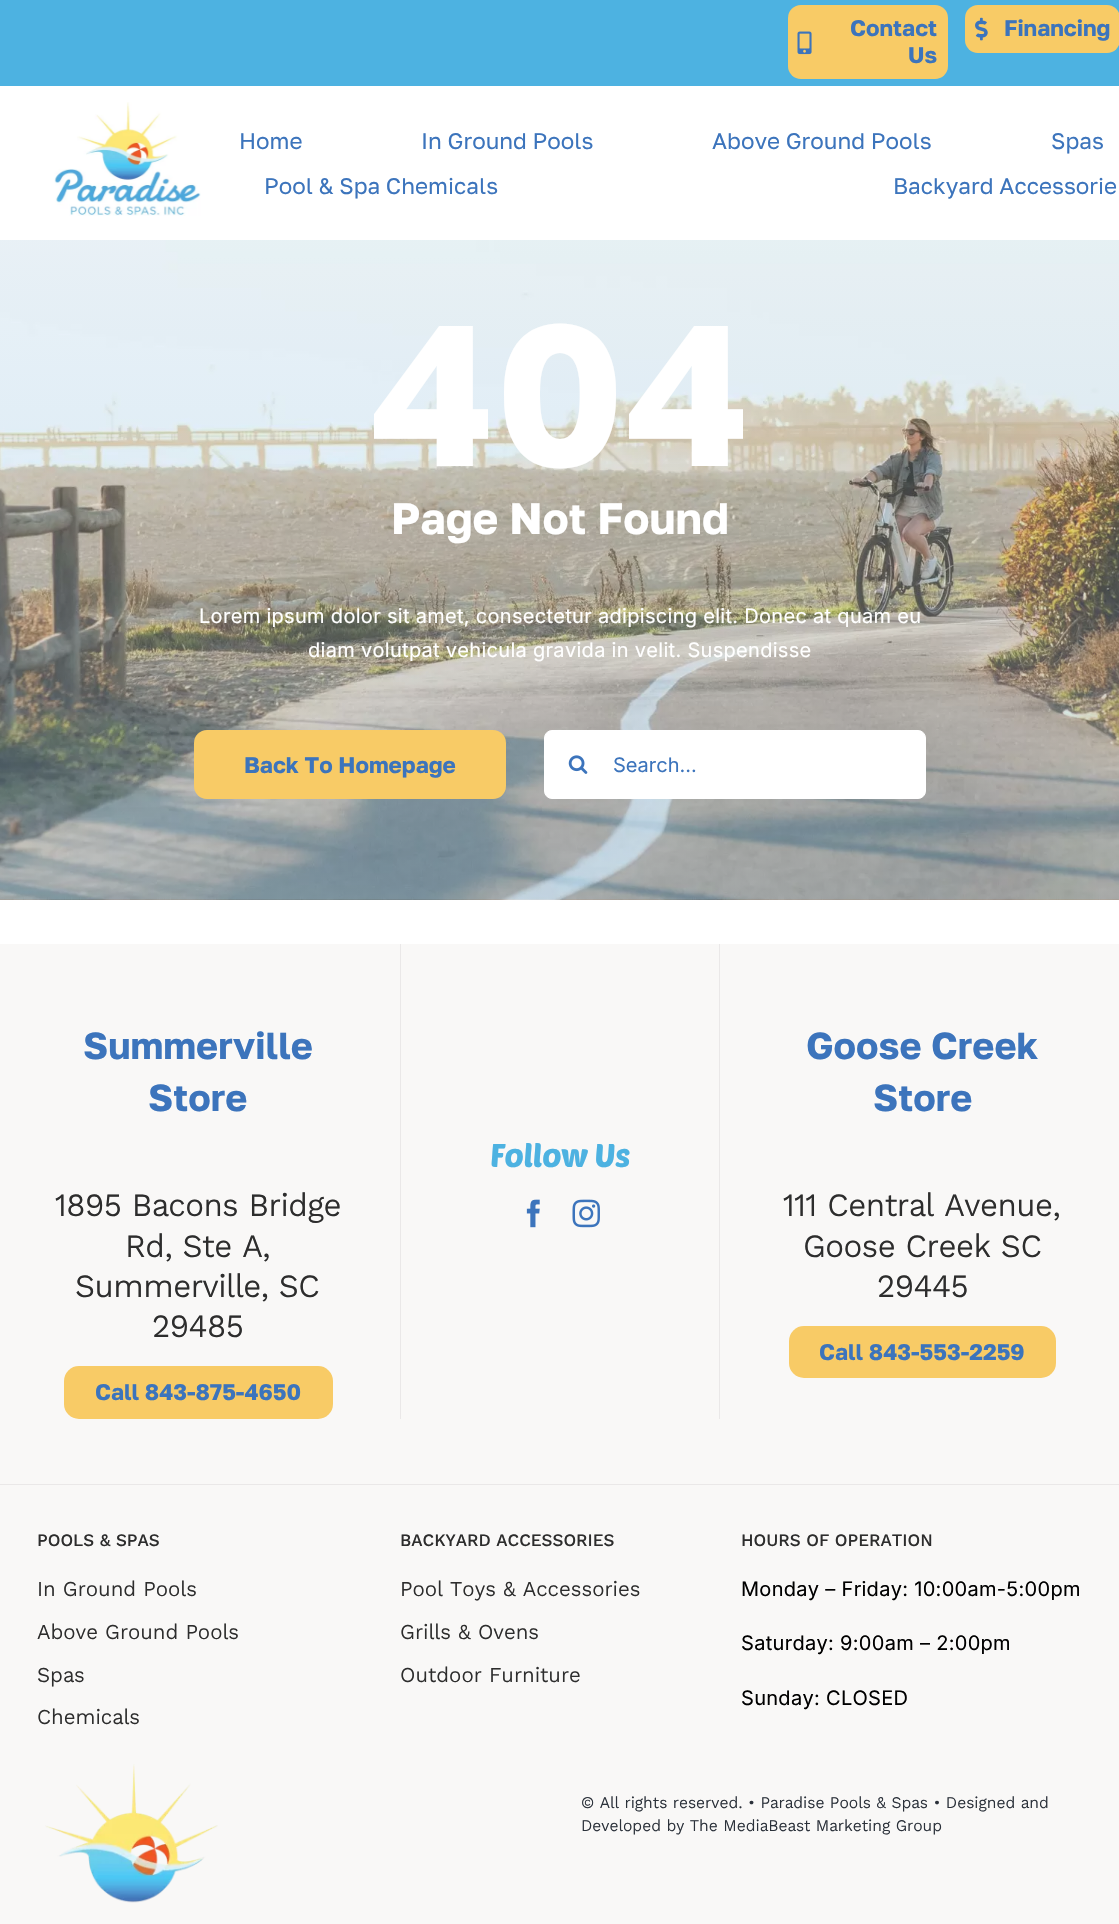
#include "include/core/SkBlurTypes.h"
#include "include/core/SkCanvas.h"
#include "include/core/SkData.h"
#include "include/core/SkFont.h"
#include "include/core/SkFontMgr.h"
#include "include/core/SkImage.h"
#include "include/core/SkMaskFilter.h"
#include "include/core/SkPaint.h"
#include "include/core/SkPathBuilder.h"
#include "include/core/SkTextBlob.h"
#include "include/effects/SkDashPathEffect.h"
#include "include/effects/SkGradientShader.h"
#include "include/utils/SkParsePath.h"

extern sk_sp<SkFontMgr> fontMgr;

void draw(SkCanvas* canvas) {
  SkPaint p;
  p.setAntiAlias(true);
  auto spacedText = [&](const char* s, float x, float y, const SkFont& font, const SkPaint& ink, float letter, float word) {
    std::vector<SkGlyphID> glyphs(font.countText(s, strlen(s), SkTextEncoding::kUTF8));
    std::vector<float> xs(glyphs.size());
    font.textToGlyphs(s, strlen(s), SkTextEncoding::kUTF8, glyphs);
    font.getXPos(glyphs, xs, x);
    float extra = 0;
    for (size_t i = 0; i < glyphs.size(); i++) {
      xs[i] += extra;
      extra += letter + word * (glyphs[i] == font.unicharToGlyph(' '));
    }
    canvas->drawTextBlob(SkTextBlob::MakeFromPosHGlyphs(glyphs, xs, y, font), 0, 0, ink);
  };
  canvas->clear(SK_ColorWHITE);
  p.setColor(SkColorSetRGB(77, 178, 225));
  canvas->drawRect(SkRect::MakeLTRB(0, 0, 1119, 86), p);
  p.setColor(SkColorSetRGB(248, 203, 102));
  canvas->drawRoundRect(SkRect::MakeLTRB(788, 5, 948, 79), 13, 13, p);
  canvas->drawImageRect(SkImages::DeferredFromEncodedData(SkData::MakeFromFileName("images/1.png")), SkRect::MakeLTRB(797, 31, 812, 55), SkSamplingOptions());
  canvas->drawRoundRect(SkRect::MakeLTRB(965, 5, 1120, 53), 13, 13, p);
  canvas->drawImageRect(SkImages::DeferredFromEncodedData(SkData::MakeFromFileName("images/2.png")), SkRect::MakeLTRB(975, 17, 988, 41), SkSamplingOptions());
  canvas->drawImageRect(SkImages::DeferredFromEncodedData(SkData::MakeFromFileName("images/3.png")), SkRect::MakeLTRB(54, 102, 201, 216), SkSamplingOptions());
  canvas->drawImageRect(SkImages::DeferredFromEncodedData(SkData::MakeFromFileName("images/4.png")), SkRect::MakeLTRB(0, 240, 1119, 900), SkSamplingOptions());
  canvas->drawRoundRect(SkRect::MakeLTRB(194, 730, 506, 799), 13, 13, p);
  p.setColor(SK_ColorWHITE);
  canvas->drawRoundRect(SkRect::MakeLTRB(544.5f, 730.5f, 925.5f, 798.5f), 7.5f, 7.5f, p);
  p.setStyle(SkPaint::kStroke_Style);
  p.setStrokeWidth(1);
  canvas->drawRoundRect(SkRect::MakeLTRB(544.5f, 730.5f, 925.5f, 798.5f), 7.5f, 7.5f, p);
  canvas->drawImageRect(SkImages::DeferredFromEncodedData(SkData::MakeFromFileName("images/5.png")), SkRect::MakeLTRB(568, 755, 588, 774), SkSamplingOptions());
  p.setStyle(SkPaint::kFill_Style);
  p.setColor(SkColorSetRGB(249, 248, 247));
  canvas->drawRect(SkRect::MakeLTRB(0, 944, 1119, 1484), p);
  p.setColor(SkColorSetRGB(248, 203, 102));
  canvas->drawRoundRect(SkRect::MakeLTRB(64, 1366, 333, 1419), 15, 15, p);
  p.setColor(SkColorSetRGB(234, 232, 232));
  canvas->drawRect(SkRect::MakeLTRB(719, 944, 720, 1419), p);
  canvas->drawRect(SkRect::MakeLTRB(400, 944, 401, 1419), p);
  canvas->drawImageRect(SkImages::DeferredFromEncodedData(SkData::MakeFromFileName("images/6.png")), SkRect::MakeLTRB(526, 1199, 540, 1228), SkSamplingOptions());
  canvas->drawImageRect(SkImages::DeferredFromEncodedData(SkData::MakeFromFileName("images/7.png")), SkRect::MakeLTRB(572, 1199, 600, 1228), SkSamplingOptions());
  p.setColor(SkColorSetRGB(248, 203, 102));
  canvas->drawRoundRect(SkRect::MakeLTRB(789, 1326, 1056, 1378), 15, 15, p);
  p.setColor(SkColorSetRGB(249, 248, 247));
  canvas->drawRect(SkRect::MakeLTRB(0, 1485, 1119, 1924), p);
  p.setColor(SkColorSetRGB(234, 232, 232));
  canvas->drawRect(SkRect::MakeLTRB(0, 1484, 1119, 1485), p);
  canvas->drawImageRect(SkImages::DeferredFromEncodedData(SkData::MakeFromFileName("images/8.png")), SkRect::MakeLTRB(45, 1764, 218, 1903), SkSamplingOptions());
  SkFont font1(fontMgr->matchFamilyStyle("Golos Text", SkFontStyle::Bold()), 22.5f);
  font1.setSubpixel(true);
  p.setColor(SkColorSetRGB(60, 116, 188));
  canvas->drawString("Contact", 850, 36, font1, p);
  canvas->drawString("Us", 908, 63, font1, p);
  canvas->drawString("Financing", 1004, 36, font1, p);
  SkFont font2(fontMgr->matchFamilyStyle("Golos Text", SkFontStyle::Normal()), 22.5f);
  font2.setSubpixel(true);
  canvas->drawString("Home", 239, 149, font2, p);
  canvas->drawString("In Ground Pools", 421, 149, font2, p);
  canvas->drawString("Above Ground Pools", 712, 149, font2, p);
  canvas->drawString("Spas", 1051, 149, font2, p);
  canvas->drawString("Pool & Spa Chemicals", 264, 194, font2, p);
  canvas->drawString("Backyard Accessorie", 893, 194, font2, p);
  SkFont font3(fontMgr->matchFamilyStyle("Golos Text", SkFontStyle::Bold()), 200);
  font3.setSubpixel(true);
  p.setColor(SK_ColorWHITE);
  canvas->drawString("404", 370, 466, font3, p);
  SkFont font4(fontMgr->matchFamilyStyle("Golos Text", SkFontStyle::Bold()), 43.75f);
  font4.setSubpixel(true);
  canvas->drawString("Page Not Found", 391, 534, font4, p);
  SkFont font5(fontMgr->matchFamilyStyle("Inter", SkFontStyle::Normal()), 20);
  font5.setSubpixel(true);
  spacedText("Lorem ipsum dolor sit amet, consectetur adipiscing elit. Donec at quam eu", 199, 623, font5, p, 0.3f, 0);
  spacedText("diam volutpat vehicula gravida in velit. Suspendisse", 308, 657, font5, p, 0.3f, 0);
  p.setColor(SkColorSetRGB(60, 116, 188));
  canvas->drawString("Back To Homepage", 244, 773, font1, p);
  canvas->drawString("Search...", 613, 772, font5, p);
  SkFont font6(fontMgr->matchFamilyStyle("Golos Text", SkFontStyle::Bold()), 37.5f);
  font6.setSubpixel(true);
  canvas->drawString("Summerville", 83, 1059, font6, p);
  canvas->drawString("Store", 148, 1111, font6, p);
  SkFont font7(fontMgr->matchFamilyStyle("Kantumruy Pro", SkFontStyle::Normal()), 32.5f);
  font7.setSubpixel(true);
  p.setColor(SkColorSetRGB(45, 45, 45));
  spacedText("1895 Bacons Bridge", 55, 1216, font7, p, -0.5f, 0);
  spacedText("Rd, Ste A,", 125, 1257, font7, p, -0.5f, 0);
  spacedText("Summerville, SC", 75, 1297, font7, p, -0.5f, 0);
  spacedText("29485", 152, 1337, font7, p, -0.5f, 0);
  p.setColor(SkColorSetRGB(60, 116, 188));
  canvas->drawString("Call 843-875-4650", 95, 1400, font1, p);
  SkFont font8(fontMgr->matchFamilyStyle("PoetsenOne", SkFontStyle::Normal()), 32.5f);
  font8.setSubpixel(true);
  p.setColor(SkColorSetRGB(77, 178, 225));
  spacedText("Follow Us", 490, 1167, font8, p, -0.5f, 0);
  p.setColor(SkColorSetRGB(60, 116, 188));
  canvas->drawString("Goose Creek", 806, 1059, font6, p);
  canvas->drawString("Store", 873, 1111, font6, p);
  p.setColor(SkColorSetRGB(45, 45, 45));
  spacedText("111 Central Avenue,", 783, 1216, font7, p, -0.5f, 0);
  spacedText("Goose Creek SC", 803, 1257, font7, p, -0.5f, 0);
  spacedText("29445", 877, 1297, font7, p, -0.5f, 0);
  p.setColor(SkColorSetRGB(60, 116, 188));
  canvas->drawString("Call 843-553-2259", 819, 1360, font1, p);
  SkFont font9(fontMgr->matchFamilyStyle("Kantumruy Pro", SkFontStyle(500, SkFontStyle::kNormal_Width, SkFontStyle::kUpright_Slant)), 17.5f);
  font9.setSubpixel(true);
  p.setColor(SkColorSetRGB(45, 45, 45));
  canvas->drawString("POOLS & SPAS", 37, 1546, font9, p);
  SkFont font10(fontMgr->matchFamilyStyle("Kantumruy Pro", SkFontStyle::Normal()), 21.25f);
  font10.setSubpixel(true);
  canvas->drawString("In Ground Pools", 37, 1596, font10, p);
  canvas->drawString("Above Ground Pools", 37, 1639, font10, p);
  canvas->drawString("Spas", 37, 1682, font10, p);
  canvas->drawString("Chemicals", 37, 1724, font10, p);
  canvas->drawString("BACKYARD ACCESSORIES", 400, 1546, font9, p);
  canvas->drawString("Pool Toys & Accessories", 400, 1596, font10, p);
  canvas->drawString("Grills & Ovens", 400, 1639, font10, p);
  canvas->drawString("Outdoor Furniture", 400, 1682, font10, p);
  canvas->drawString("HOURS OF OPERATION", 741, 1546, font9, p);
  p.setColor(SK_ColorBLACK);
  spacedText("Monday – Friday: 10:00am-5:00pm", 741, 1596, font5, p, 0.3f, 0);
  spacedText("Saturday: 9:00am – 2:00pm", 741, 1650, font5, p, 0.3f, 0);
  spacedText("Sunday: CLOSED", 741, 1705, font5, p, 0.3f, 0);
  SkFont font11(fontMgr->matchFamilyStyle("Kantumruy Pro", SkFontStyle::Normal()), 16.25f);
  font11.setSubpixel(true);
  p.setColor(SkColorSetRGB(43, 49, 58));
  canvas->drawString("© All rights reserved. • Paradise Pools & Spas • Designed and", 581, 1808, font11, p);
  canvas->drawString("Developed by The MediaBeast Marketing Group", 581, 1831, font11, p);
}
